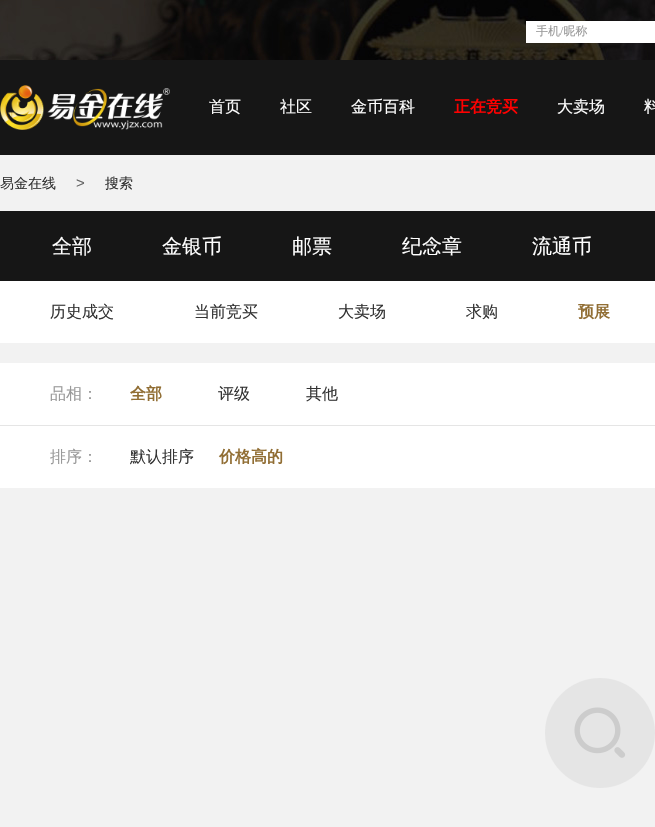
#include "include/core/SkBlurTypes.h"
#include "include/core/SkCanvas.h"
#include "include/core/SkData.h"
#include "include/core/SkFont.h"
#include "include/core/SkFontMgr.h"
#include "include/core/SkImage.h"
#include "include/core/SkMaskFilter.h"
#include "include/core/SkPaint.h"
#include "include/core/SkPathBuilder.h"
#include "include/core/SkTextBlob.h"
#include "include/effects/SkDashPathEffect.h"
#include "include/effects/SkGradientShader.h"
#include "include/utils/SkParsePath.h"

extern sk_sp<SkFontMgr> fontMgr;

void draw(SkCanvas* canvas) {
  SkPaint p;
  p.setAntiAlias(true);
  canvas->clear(SkColorSetRGB(242, 242, 242));
  canvas->drawImageRect(SkImages::DeferredFromEncodedData(SkData::MakeFromFileName("images/1.png")), SkRect::MakeLTRB(0, 0, 655, 60), SkSamplingOptions());
  p.setColor(SK_ColorWHITE);
  canvas->drawRect(SkRect::MakeLTRB(526, 21, 655, 43), p);
  p.setColor(SkColorSetRGB(22, 22, 22));
  canvas->drawRect(SkRect::MakeLTRB(0, 60, 655, 155), p);
  canvas->drawImageRect(SkImages::DeferredFromEncodedData(SkData::MakeFromFileName("images/2.png")), SkRect::MakeLTRB(0, 85, 170, 130), SkSamplingOptions());
  canvas->drawRect(SkRect::MakeLTRB(0, 211, 655, 281), p);
  p.setColor(SK_ColorWHITE);
  canvas->drawRect(SkRect::MakeLTRB(0, 281, 655, 343), p);
  canvas->drawRect(SkRect::MakeLTRB(0, 363, 655, 425), p);
  p.setColor(SkColorSetRGB(229, 229, 229));
  canvas->drawRect(SkRect::MakeLTRB(0, 425, 655, 426), p);
  p.setColor(SK_ColorWHITE);
  canvas->drawRect(SkRect::MakeLTRB(0, 426, 655, 488), p);
  canvas->drawImageRect(SkImages::DeferredFromEncodedData(SkData::MakeFromFileName("images/3.png")), SkRect::MakeLTRB(545, 678, 655, 788), SkSamplingOptions());
  SkFont font1(fontMgr->matchFamilyStyle("WenQuanYi Zen Hei", SkFontStyle(500, SkFontStyle::kNormal_Width, SkFontStyle::kUpright_Slant)), 12);
  font1.setSubpixel(true);
  p.setColor(SkColorSetRGB(153, 153, 153));
  canvas->drawString("手机 昵称", 536, 35, font1, p);
  SkFont font2(fontMgr->matchFamilyStyle("Liberation Serif", SkFontStyle::Normal()), 12);
  font2.setSubpixel(true);
  canvas->drawString("/", 560, 35, font2, p);
  SkFont font3(fontMgr->matchFamilyStyle("WenQuanYi Zen Hei", SkFontStyle(500, SkFontStyle::kNormal_Width, SkFontStyle::kUpright_Slant)), 16);
  font3.setSubpixel(true);
  p.setColor(SK_ColorWHITE);
  canvas->drawString("首页", 209, 112, font3, p);
  canvas->drawString("社区", 280, 112, font3, p);
  canvas->drawString("金币百科", 351, 112, font3, p);
  SkFont font4(fontMgr->matchFamilyStyle("WenQuanYi Zen Hei", SkFontStyle::Bold()), 16);
  font4.setSubpixel(true);
  p.setColor(SkColorSetRGB(255, 0, 0));
  canvas->drawString("正在竞买", 454, 112, font4, p);
  p.setColor(SK_ColorWHITE);
  canvas->drawString("大卖场", 557, 112, font3, p);
  canvas->drawString("料", 644, 112, font3, p);
  SkFont font5(fontMgr->matchFamilyStyle("WenQuanYi Zen Hei", SkFontStyle(500, SkFontStyle::kNormal_Width, SkFontStyle::kUpright_Slant)), 14);
  font5.setSubpixel(true);
  p.setColor(SkColorSetRGB(51, 51, 51));
  canvas->drawString("易金在线", 0, 188, font5, p);
  SkFont font6(fontMgr->matchFamilyStyle("Liberation Sans", SkFontStyle::Normal()), 15);
  font6.setSubpixel(true);
  p.setColor(SkColorSetRGB(102, 102, 102));
  canvas->drawString(">", 76, 188, font6, p);
  p.setColor(SkColorSetRGB(51, 51, 51));
  canvas->drawString("搜索", 105, 188, font5, p);
  SkFont font7(fontMgr->matchFamilyStyle("WenQuanYi Zen Hei", SkFontStyle(500, SkFontStyle::kNormal_Width, SkFontStyle::kUpright_Slant)), 20);
  font7.setSubpixel(true);
  p.setColor(SK_ColorWHITE);
  canvas->drawString("全部", 52, 253, font7, p);
  canvas->drawString("金银币", 162, 253, font7, p);
  canvas->drawString("邮票", 292, 253, font7, p);
  canvas->drawString("纪念章", 402, 253, font7, p);
  canvas->drawString("流通币", 532, 253, font7, p);
  p.setColor(SkColorSetRGB(51, 51, 51));
  canvas->drawString("历史成交", 50, 317, font3, p);
  canvas->drawString("当前竞买", 194, 317, font3, p);
  canvas->drawString("大卖场", 338, 317, font3, p);
  canvas->drawString("求购", 466, 317, font3, p);
  p.setColor(SkColorSetRGB(145, 110, 52));
  canvas->drawString("预展", 578, 317, font4, p);
  p.setColor(SkColorSetRGB(153, 153, 153));
  canvas->drawString("品相：", 50, 399, font3, p);
  p.setColor(SkColorSetRGB(145, 110, 52));
  canvas->drawString("全部", 130, 399, font4, p);
  p.setColor(SkColorSetRGB(51, 51, 51));
  canvas->drawString("评级", 218, 399, font3, p);
  canvas->drawString("其他", 306, 399, font3, p);
  p.setColor(SkColorSetRGB(153, 153, 153));
  canvas->drawString("排序：", 50, 462, font3, p);
  p.setColor(SkColorSetRGB(51, 51, 51));
  canvas->drawString("默认排序", 130, 462, font3, p);
  p.setColor(SkColorSetRGB(145, 110, 52));
  canvas->drawString("价格高的", 219, 462, font4, p);
}
